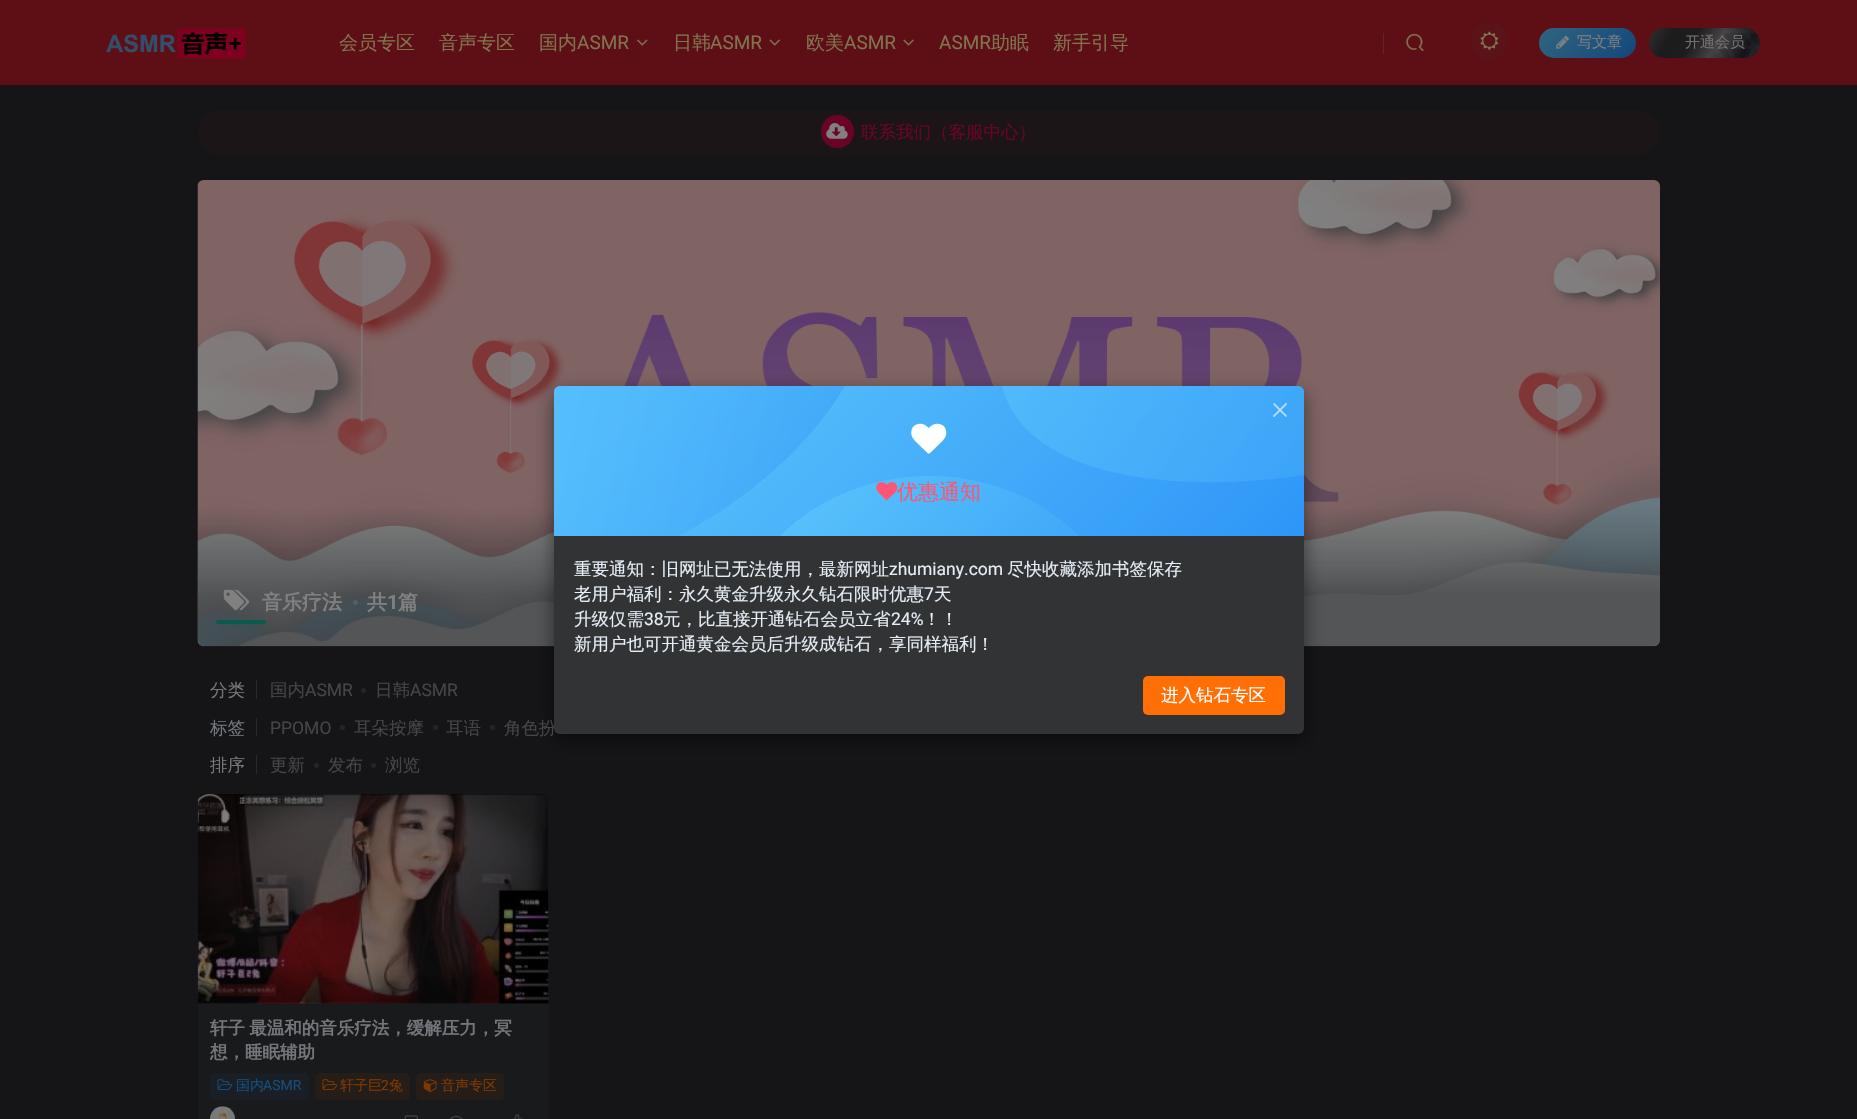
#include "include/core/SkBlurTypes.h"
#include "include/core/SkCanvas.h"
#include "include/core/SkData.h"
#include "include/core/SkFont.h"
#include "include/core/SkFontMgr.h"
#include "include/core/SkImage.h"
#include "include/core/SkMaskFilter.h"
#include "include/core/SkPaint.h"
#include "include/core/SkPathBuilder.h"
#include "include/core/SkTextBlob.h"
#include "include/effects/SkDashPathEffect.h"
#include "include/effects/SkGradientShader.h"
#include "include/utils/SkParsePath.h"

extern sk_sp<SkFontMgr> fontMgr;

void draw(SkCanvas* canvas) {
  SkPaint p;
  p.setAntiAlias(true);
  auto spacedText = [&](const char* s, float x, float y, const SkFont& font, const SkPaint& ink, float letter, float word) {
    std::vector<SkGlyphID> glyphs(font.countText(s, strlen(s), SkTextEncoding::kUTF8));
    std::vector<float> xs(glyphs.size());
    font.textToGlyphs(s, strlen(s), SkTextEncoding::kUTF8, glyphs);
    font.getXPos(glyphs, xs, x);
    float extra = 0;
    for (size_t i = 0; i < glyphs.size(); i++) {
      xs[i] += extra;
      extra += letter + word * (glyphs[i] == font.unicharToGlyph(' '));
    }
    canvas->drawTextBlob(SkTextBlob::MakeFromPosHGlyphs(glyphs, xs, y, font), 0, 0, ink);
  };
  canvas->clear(SkColorSetRGB(21, 21, 23));
  p.setColor(SkColorSetRGB(94, 15, 22));
  canvas->drawRect(SkRect::MakeLTRB(0, 0, 1857, 85), p);
  canvas->drawImageRect(SkImages::DeferredFromEncodedData(SkData::MakeFromFileName("images/1.png")), SkRect::MakeLTRB(106, 28, 246, 59), SkSamplingOptions());
  canvas->drawImageRect(SkImages::DeferredFromEncodedData(SkData::MakeFromFileName("images/2.png")), SkRect::MakeLTRB(637, 39, 648, 46), SkSamplingOptions());
  canvas->drawImageRect(SkImages::DeferredFromEncodedData(SkData::MakeFromFileName("images/3.png")), SkRect::MakeLTRB(769, 39, 780, 46), SkSamplingOptions());
  canvas->drawImageRect(SkImages::DeferredFromEncodedData(SkData::MakeFromFileName("images/4.png")), SkRect::MakeLTRB(903, 39, 914, 46), SkSamplingOptions());
  p.setColor(SkColorSetRGB(98, 36, 43));
  canvas->drawRect(SkRect::MakeLTRB(1383, 33, 1384, 54), p);
  canvas->drawImageRect(SkImages::DeferredFromEncodedData(SkData::MakeFromFileName("images/5.png")), SkRect::MakeLTRB(1406, 34, 1424, 51), SkSamplingOptions());
  p.setColor(SkColorSetRGB(91, 19, 26));
  canvas->drawRoundRect(SkRect::MakeLTRB(1471, 23, 1508, 59), 18, 18, p);
  canvas->drawImageRect(SkImages::DeferredFromEncodedData(SkData::MakeFromFileName("images/6.png")), SkRect::MakeLTRB(1480, 31, 1499, 51), SkSamplingOptions());
  {
    const SkColor colors[] = {SkColorSetRGB(45, 98, 126), SkColorSetRGB(19, 71, 124)};
    const float stops[] = {0.1f, 1};
    const SkPoint ends[] = {{1556, 11}, {1619, 74}};
    p.setShader(SkGradientShader::MakeLinear(ends, colors, stops, 2, SkTileMode::kClamp));
    p.setAlpha(255);
  }
  canvas->drawRoundRect(SkRect::MakeLTRB(1539, 28, 1636, 58), 15, 15, p);
  canvas->drawImageRect(SkImages::DeferredFromEncodedData(SkData::MakeFromFileName("images/7.png")), SkRect::MakeLTRB(1556, 35, 1569, 49), SkSamplingOptions());
  {
    const SkColor colors[] = {SkColorSetRGB(38, 39, 41), SkColorSetRGB(21, 21, 25), SkColorSetRGB(67, 67, 69), SkColorSetRGB(29, 29, 30), SkColorSetRGB(29, 28, 28), SkColorSetRGB(47, 48, 49)};
    const float stops[] = {0, 0.15f, 0.4f, 0.6f, 0.8f, 1};
    const SkPoint ends[] = {{1753, 70}, {1656, 15}};
    p.setShader(SkGradientShader::MakeLinear(ends, colors, stops, 6, SkTileMode::kClamp));
    p.setAlpha(255);
  }
  canvas->drawRoundRect(SkRect::MakeLTRB(1649, 28, 1760, 58), 15, 15, p);
  p.setShader(nullptr);
  p.setColor(SkColorSetRGB(28, 21, 23));
  canvas->drawRoundRect(SkRect::MakeLTRB(198, 110, 1660, 155), 22.5f, 22.5f, p);
  p.setColor(SkColorSetRGB(107, 3, 38));
  canvas->drawCircle(837.5f, 131.5f, 16.5f, p);
  canvas->drawImageRect(SkImages::DeferredFromEncodedData(SkData::MakeFromFileName("images/9.png")), SkRect::MakeLTRB(826, 123, 848, 139), SkSamplingOptions());
  p.setColor(SkColorSetRGB(25, 26, 27));
  canvas->drawRoundRect(SkRect::MakeLTRB(198, 180, 1660, 646), 6, 6, p);
  canvas->drawImageRect(SkImages::DeferredFromEncodedData(SkData::MakeFromFileName("images/10.png")), SkRect::MakeLTRB(197, 180, 1660, 647), SkSamplingOptions());
  {
    const SkColor colors[] = {SkColorSetARGB(102, 15, 21, 25), SkColorSetARGB(0, 15, 21, 25)};
    const float stops[] = {0.11f, 0.3f};
    const SkPoint ends[] = {{929, 646}, {929, 180}};
    p.setShader(SkGradientShader::MakeLinear(ends, colors, stops, 2, SkTileMode::kClamp));
    p.setAlpha(255);
  }
  canvas->drawRoundRect(SkRect::MakeLTRB(198, 180, 1660, 646), 6, 6, p);
  canvas->drawImageRect(SkImages::DeferredFromEncodedData(SkData::MakeFromFileName("images/11.png")), SkRect::MakeLTRB(223, 589, 250, 611), SkSamplingOptions());
  p.setShader(nullptr);
  p.setColor(SkColorSetRGB(85, 93, 98));
  canvas->drawCircle(355.5f, 602.5f, 2.5f, p);
  p.setColor(SkColorSetRGB(11, 91, 76));
  p.setMaskFilter(SkMaskFilter::MakeBlur(kNormal_SkBlurStyle, 2));
  canvas->drawRoundRect(SkRect::MakeLTRB(219, 623, 266, 624), 0.5f, 0.5f, p);
  p.setMaskFilter(nullptr);
  canvas->drawRoundRect(SkRect::MakeLTRB(216, 620, 266, 624), 2, 2, p);
  p.setColor(SkColorSetRGB(40, 41, 43));
  canvas->drawRect(SkRect::MakeLTRB(256, 680, 257, 699), p);
  p.setColor(SkColorSetRGB(35, 36, 37));
  canvas->drawCircle(363.5f, 690.5f, 2.5f, p);
  p.setColor(SkColorSetRGB(40, 41, 43));
  canvas->drawRect(SkRect::MakeLTRB(256, 718, 257, 736), p);
  p.setColor(SkColorSetRGB(35, 36, 37));
  canvas->drawCircle(342.5f, 727.5f, 2.5f, p);
  canvas->drawCircle(435.5f, 727.5f, 2.5f, p);
  canvas->drawCircle(492.5f, 727.5f, 2.5f, p);
  p.setColor(SkColorSetRGB(40, 41, 43));
  canvas->drawRect(SkRect::MakeLTRB(256, 755, 257, 774), p);
  p.setColor(SkColorSetRGB(35, 36, 37));
  canvas->drawCircle(316.5f, 765.5f, 2.5f, p);
  canvas->drawCircle(373.5f, 765.5f, 2.5f, p);
  p.setColor(SkColorSetRGB(25, 26, 27));
  canvas->drawRoundRect(SkRect::MakeLTRB(198, 794, 549, 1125), 6, 6, p);
  canvas->drawImageRect(SkImages::DeferredFromEncodedData(SkData::MakeFromFileName("images/12.png")), SkRect::MakeLTRB(197, 794, 549, 1004), SkSamplingOptions());
  p.setColor(SkColorSetRGB(25, 31, 36));
  canvas->drawRoundRect(SkRect::MakeLTRB(210, 1073, 309, 1100), 5, 5, p);
  canvas->drawImageRect(SkImages::DeferredFromEncodedData(SkData::MakeFromFileName("images/13.png")), SkRect::MakeLTRB(217, 1079, 233, 1090), SkSamplingOptions());
  p.setColor(SkColorSetRGB(36, 29, 24));
  canvas->drawRoundRect(SkRect::MakeLTRB(315, 1073, 410, 1100), 5, 5, p);
  canvas->drawImageRect(SkImages::DeferredFromEncodedData(SkData::MakeFromFileName("images/14.png")), SkRect::MakeLTRB(322, 1079, 338, 1090), SkSamplingOptions());
  canvas->drawRoundRect(SkRect::MakeLTRB(416, 1073, 504, 1100), 5, 5, p);
  canvas->drawImageRect(SkImages::DeferredFromEncodedData(SkData::MakeFromFileName("images/15.png")), SkRect::MakeLTRB(423, 1079, 437, 1092), SkSamplingOptions());
  canvas->drawImageRect(SkImages::DeferredFromEncodedData(SkData::MakeFromFileName("images/16.png")), SkRect::MakeLTRB(210, 1106, 235, 1119), SkSamplingOptions());
  canvas->drawImageRect(SkImages::DeferredFromEncodedData(SkData::MakeFromFileName("images/17.png")), SkRect::MakeLTRB(404, 1115, 418, 1119), SkSamplingOptions());
  canvas->drawImageRect(SkImages::DeferredFromEncodedData(SkData::MakeFromFileName("images/18.png")), SkRect::MakeLTRB(450, 1115, 463, 1119), SkSamplingOptions());
  canvas->drawImageRect(SkImages::DeferredFromEncodedData(SkData::MakeFromFileName("images/19.png")), SkRect::MakeLTRB(512, 1114, 524, 1119), SkSamplingOptions());
  p.setColor(SkColorSetARGB(128, 0, 0, 0));
  p.setMaskFilter(SkMaskFilter::MakeBlur(kNormal_SkBlurStyle, 9.5f));
  canvas->drawRoundRect(SkRect::MakeLTRB(554, 393, 1304, 740), 6, 6, p);
  p.setMaskFilter(nullptr);
  SkFont font1(fontMgr->matchFamilyStyle("WenQuanYi Zen Hei", SkFontStyle(500, SkFontStyle::kNormal_Width, SkFontStyle::kUpright_Slant)), 19);
  font1.setSubpixel(true);
  p.setColor(SkColorSetRGB(128, 116, 78));
  canvas->drawString("会员专区", 339, 49, font1, p);
  canvas->drawString("音声专区", 439, 49, font1, p);
  canvas->drawString("国内", 539, 49, font1, p);
  SkFont font2(fontMgr->matchFamilyStyle("Roboto", SkFontStyle::Normal()), 19);
  font2.setSubpixel(true);
  canvas->drawString("ASMR", 577, 49, font2, p);
  canvas->drawString("日韩", 673, 49, font1, p);
  canvas->drawString("ASMR", 710, 49, font2, p);
  canvas->drawString("欧美", 806, 49, font1, p);
  canvas->drawString("ASMR", 844, 49, font2, p);
  canvas->drawString("ASMR", 939, 49, font2, p);
  canvas->drawString("助眠", 991, 49, font1, p);
  canvas->drawString("新手引导", 1053, 49, font1, p);
  SkFont font3(fontMgr->matchFamilyStyle("WenQuanYi Zen Hei", SkFontStyle(500, SkFontStyle::kNormal_Width, SkFontStyle::kUpright_Slant)), 15);
  font3.setSubpixel(true);
  p.setColor(SkColorSetRGB(128, 128, 128));
  canvas->drawString("写文章", 1577, 47, font3, p);
  p.setColor(SkColorSetRGB(118, 112, 112));
  canvas->drawString("开通会员", 1685, 47, font3, p);
  canvas->drawImageRect(SkImages::DeferredFromEncodedData(SkData::MakeFromFileName("images/8.png")), SkRect::MakeLTRB(1711, 30, 1760, 58), SkSamplingOptions());
  SkFont font4(fontMgr->matchFamilyStyle("WenQuanYi Zen Hei", SkFontStyle(500, SkFontStyle::kNormal_Width, SkFontStyle::kUpright_Slant)), 17.5f);
  font4.setSubpixel(true);
  p.setColor(SkColorSetRGB(107, 3, 38));
  canvas->drawString("联系我们（客服中心）", 861, 138, font4, p);
  SkFont font5(fontMgr->matchFamilyStyle("WenQuanYi Zen Hei", SkFontStyle::Bold()), 20);
  font5.setSubpixel(true);
  p.setColor(SkColorSetRGB(128, 128, 128));
  canvas->drawString("音乐疗法", 262, 609, font5, p);
  canvas->drawString("共", 367, 609, font5, p);
  SkFont font6(fontMgr->matchFamilyStyle("Roboto", SkFontStyle::Bold()), 20);
  font6.setSubpixel(true);
  canvas->drawString("1", 387, 609, font6, p);
  canvas->drawString("篇", 398, 609, font5, p);
  p.setColor(SkColorSetRGB(115, 119, 124));
  canvas->drawString("分类", 210, 696, font4, p);
  p.setColor(SkColorSetRGB(68, 69, 72));
  canvas->drawString("国内", 270, 696, font4, p);
  SkFont font7(fontMgr->matchFamilyStyle("Roboto", SkFontStyle::Normal()), 17.5f);
  font7.setSubpixel(true);
  canvas->drawString("ASMR", 305, 696, font7, p);
  canvas->drawString("日韩", 375, 696, font4, p);
  canvas->drawString("ASMR", 410, 696, font7, p);
  p.setColor(SkColorSetRGB(115, 119, 124));
  canvas->drawString("标签", 210, 734, font4, p);
  p.setColor(SkColorSetRGB(68, 69, 72));
  canvas->drawString("PPOMO", 270, 734, font7, p);
  canvas->drawString("耳朵按摩", 354, 734, font4, p);
  canvas->drawString("耳语", 446, 734, font4, p);
  canvas->drawString("角色扮", 504, 734, font4, p);
  p.setColor(SkColorSetRGB(115, 119, 124));
  canvas->drawString("排序", 210, 771, font4, p);
  p.setColor(SkColorSetRGB(68, 69, 72));
  canvas->drawString("更新", 270, 771, font4, p);
  canvas->drawString("发布", 328, 771, font4, p);
  canvas->drawString("浏览", 385, 771, font4, p);
  SkFont font8(fontMgr->matchFamilyStyle("WenQuanYi Zen Hei", SkFontStyle::Bold()), 17.5f);
  font8.setSubpixel(true);
  p.setColor(SkColorSetRGB(115, 119, 124));
  spacedText("轩子 最温和的音乐疗法，缓解压力，冥", 210, 1034, font8, p, 0, -1);
  canvas->drawString("想，睡眠辅助", 210, 1058, font8, p);
  SkFont font9(fontMgr->matchFamilyStyle("WenQuanYi Zen Hei", SkFontStyle(500, SkFontStyle::kNormal_Width, SkFontStyle::kUpright_Slant)), 14);
  font9.setSubpixel(true);
  p.setColor(SkColorSetRGB(21, 76, 124));
  canvas->drawString("国内", 236, 1090, font9, p);
  SkFont font10(fontMgr->matchFamilyStyle("Roboto", SkFontStyle::Normal()), 14);
  font10.setSubpixel(true);
  canvas->drawString("ASMR", 263, 1090, font10, p);
  p.setColor(SkColorSetRGB(128, 56, 3));
  canvas->drawString("轩子巨", 340, 1090, font9, p);
  canvas->drawString("2", 381, 1090, font10, p);
  canvas->drawString("兔", 389, 1090, font9, p);
  canvas->drawString("音声专区", 441, 1090, font9, p);
  p.setColor(SkColorSetRGB(50, 51, 53));
  canvas->drawRoundRect(SkRect::MakeLTRB(554, 386, 1304, 734), 6, 6, p);
  {
    const SkColor colors[] = {SkColorSetRGB(89, 195, 251), SkColorSetRGB(38, 141, 247)};
    const float stops[] = {0.1f, 1};
    const SkPoint ends[] = {{741, 199}, {1266, 724}};
    p.setShader(SkGradientShader::MakeLinear(ends, colors, stops, 2, SkTileMode::kClamp));
    p.setAlpha(255);
  }
  canvas->drawPath(SkPathBuilder().moveTo(560, 386).lineTo(1298, 386).cubicTo(1301.5f, 386, 1304, 388.5f, 1304, 392).lineTo(1304, 536).lineTo(554, 536).lineTo(554, 392).cubicTo(554, 388.5f, 556.5f, 386, 560, 386).close().detach(), p);
  {
    const SkColor colors[] = {SkColorSetRGB(89, 195, 251), SkColorSetRGB(38, 141, 247)};
    const float stops[] = {0.1f, 1};
    const SkPoint ends[] = {{738, 466}, {1121, 849}};
    p.setShader(SkGradientShader::MakeLinear(ends, colors, stops, 2, SkTileMode::kClamp));
    p.setAlpha(255);
  }
  canvas->drawPath(SkPathBuilder().moveTo(930, 476).cubicTo(989, 476, 1042, 499, 1079, 536).lineTo(780, 536).cubicTo(817, 499, 870, 476, 930, 476).close().detach(), p);
  {
    const SkColor colors[] = {SkColorSetARGB(102, 89, 195, 251), SkColorSetARGB(102, 38, 141, 247)};
    const float stops[] = {0.1f, 1};
    const SkPoint ends[] = {{383, 346}, {918, 449}};
    p.setShader(SkGradientShader::MakeLinear(ends, colors, stops, 2, SkTileMode::kClamp));
    p.setAlpha(255);
  }
  canvas->drawPath(SkPathBuilder().moveTo(560, 386).lineTo(845, 386).cubicTo(811, 443, 758, 489, 702, 523).lineTo(678, 536).lineTo(554, 536).lineTo(554, 392).cubicTo(554, 389, 557, 386, 560, 386).close().detach(), p);
  {
    const SkColor colors[] = {SkColorSetARGB(153, 89, 195, 251), SkColorSetARGB(153, 38, 141, 247)};
    const float stops[] = {0.1f, 1};
    const SkPoint ends[] = {{1017, 68}, {1793, 447}};
    p.setShader(SkGradientShader::MakeLinear(ends, colors, stops, 2, SkTileMode::kClamp));
    p.setAlpha(255);
  }
  canvas->drawPath(SkPathBuilder().moveTo(1304, 475).cubicTo(1152, 497, 1030, 468, 1005, 395).lineTo(1002, 386).lineTo(1298, 386).cubicTo(1301, 386, 1304, 389, 1304, 392).close().detach(), p);
  canvas->drawImageRect(SkImages::DeferredFromEncodedData(SkData::MakeFromFileName("images/20.png")), SkRect::MakeLTRB(1273, 403, 1287, 417), SkSamplingOptions());
  canvas->drawImageRect(SkImages::DeferredFromEncodedData(SkData::MakeFromFileName("images/21.png")), SkRect::MakeLTRB(911, 423, 947, 454), SkSamplingOptions());
  canvas->drawImageRect(SkImages::DeferredFromEncodedData(SkData::MakeFromFileName("images/22.png")), SkRect::MakeLTRB(876, 482, 898, 501), SkSamplingOptions());
  SkFont font11(fontMgr->matchFamilyStyle("WenQuanYi Zen Hei", SkFontStyle(500, SkFontStyle::kNormal_Width, SkFontStyle::kUpright_Slant)), 21);
  font11.setSubpixel(true);
  p.setShader(nullptr);
  p.setColor(SkColorSetRGB(255, 84, 115));
  canvas->drawString("优惠通知", 897, 499, font11, p);
  p.setColor(SkColorSetRGB(229, 238, 247));
  canvas->drawString("重要通知：旧网址已无法使用，最新网址", 574, 575, font4, p);
  canvas->drawString("zhumiany.com", 889, 575, font7, p);
  canvas->drawString("尽快收藏添加书签保存", 1007, 575, font4, p);
  canvas->drawString("老用户福利：永久黄金升级永久钻石限时优惠", 574, 600, font4, p);
  canvas->drawString("7", 924, 600, font7, p);
  canvas->drawString("天", 934, 600, font4, p);
  canvas->drawString("升级仅需", 574, 625, font4, p);
  canvas->drawString("38", 644, 625, font7, p);
  canvas->drawString("元，比直接开通钻石会员立省", 663, 625, font4, p);
  canvas->drawString("24%", 891, 625, font7, p);
  canvas->drawString("！！", 923, 625, font4, p);
  canvas->drawString("新用户也可开通黄金会员后升级成钻石，享同样福利！", 574, 650, font4, p);
  p.setColor(SkColorSetRGB(255, 111, 6));
  canvas->drawRoundRect(SkRect::MakeLTRB(1143, 676, 1285, 715), 5, 5, p);
  p.setColor(SK_ColorWHITE);
  canvas->drawString("进入钻石专区", 1161, 701, font4, p);
}
